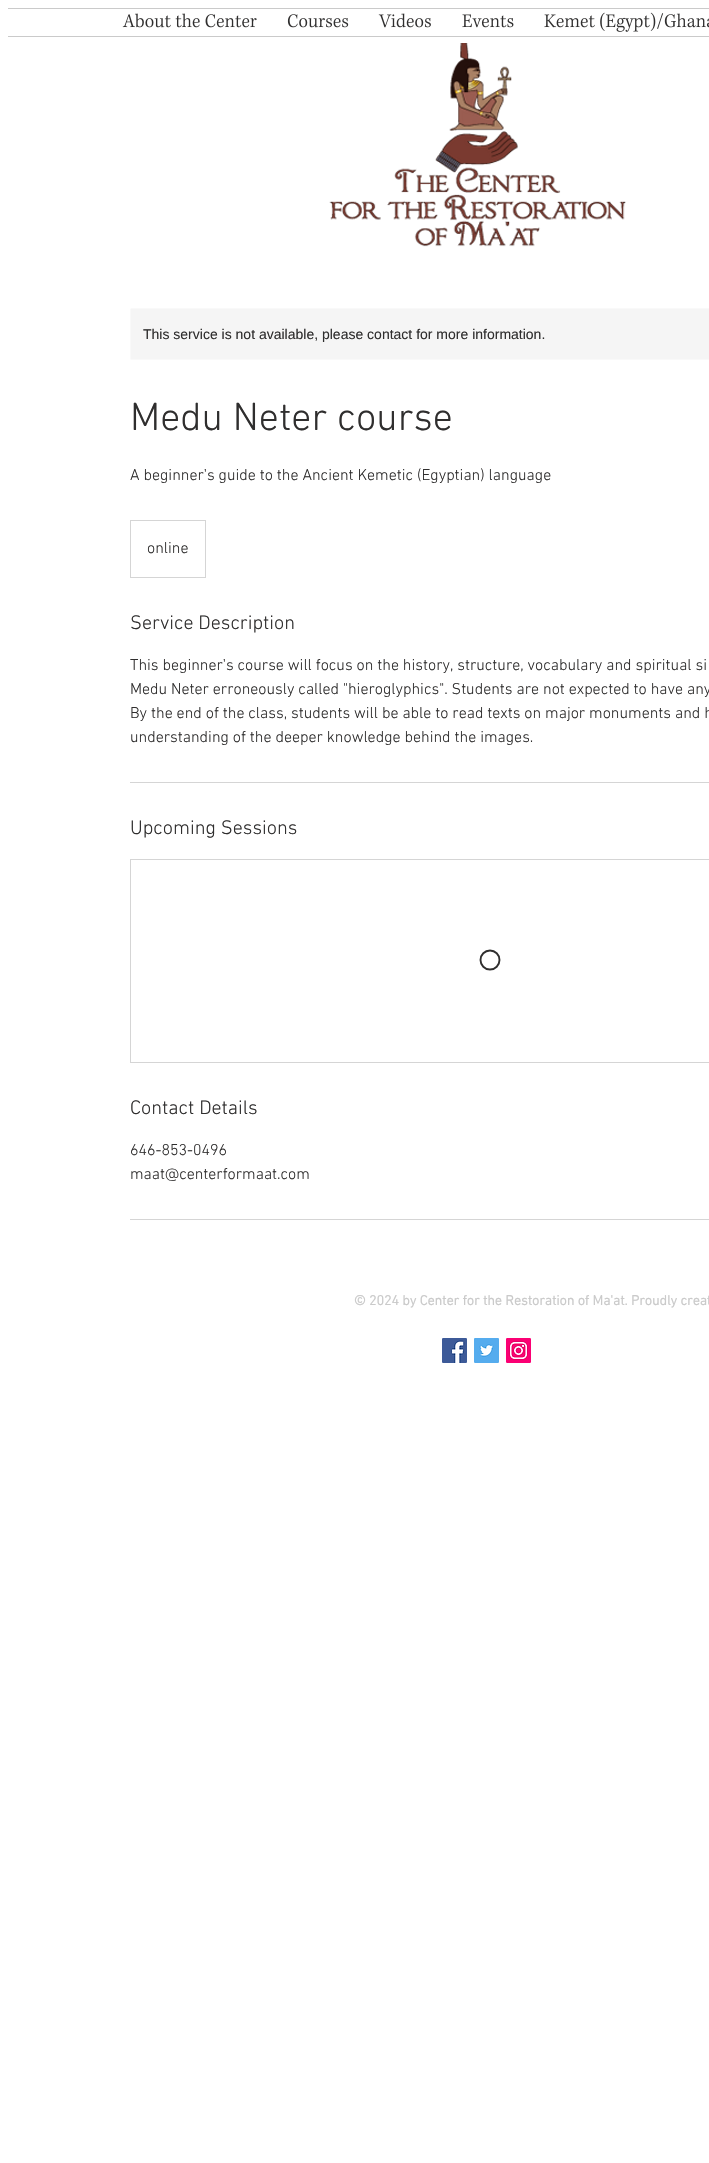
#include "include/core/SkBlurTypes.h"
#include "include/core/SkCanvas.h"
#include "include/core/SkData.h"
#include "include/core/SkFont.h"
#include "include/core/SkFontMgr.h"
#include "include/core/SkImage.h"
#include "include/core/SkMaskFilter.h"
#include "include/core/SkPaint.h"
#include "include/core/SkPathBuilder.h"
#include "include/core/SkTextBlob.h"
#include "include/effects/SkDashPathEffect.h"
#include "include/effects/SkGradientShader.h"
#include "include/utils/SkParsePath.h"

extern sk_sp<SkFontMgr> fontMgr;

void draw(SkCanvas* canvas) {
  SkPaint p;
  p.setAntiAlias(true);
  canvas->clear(SK_ColorWHITE);
  p.setColor(SkColorSetRGB(202, 202, 202));
  canvas->drawRect(SkRect::MakeLTRB(8, 8, 709, 9), p);
  canvas->drawRect(SkRect::MakeLTRB(8, 36, 709, 37), p);
  canvas->drawImageRect(SkImages::DeferredFromEncodedData(SkData::MakeFromFileName("images/1.png")), SkRect::MakeLTRB(122, 13, 257, 28), SkSamplingOptions());
  canvas->drawImageRect(SkImages::DeferredFromEncodedData(SkData::MakeFromFileName("images/2.png")), SkRect::MakeLTRB(287, 14, 349, 28), SkSamplingOptions());
  canvas->drawImageRect(SkImages::DeferredFromEncodedData(SkData::MakeFromFileName("images/3.png")), SkRect::MakeLTRB(378, 13, 431, 28), SkSamplingOptions());
  canvas->drawImageRect(SkImages::DeferredFromEncodedData(SkData::MakeFromFileName("images/4.png")), SkRect::MakeLTRB(462, 14, 514, 28), SkSamplingOptions());
  canvas->drawImageRect(SkImages::DeferredFromEncodedData(SkData::MakeFromFileName("images/5.png")), SkRect::MakeLTRB(544, 12, 709, 32), SkSamplingOptions());
  canvas->drawImageRect(SkImages::DeferredFromEncodedData(SkData::MakeFromFileName("images/6.png")), SkRect::MakeLTRB(329, 43, 626, 247), SkSamplingOptions());
  p.setColor(SkColorSetRGB(245, 245, 245));
  canvas->drawRoundRect(SkRect::MakeLTRB(130.5f, 308.5f, 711.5f, 359.5f), 1.5f, 1.5f, p);
  p.setStyle(SkPaint::kStroke_Style);
  p.setStrokeWidth(1);
  p.setColor(SkColorSetRGB(249, 249, 249));
  canvas->drawRoundRect(SkRect::MakeLTRB(130.5f, 308.5f, 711.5f, 359.5f), 1.5f, 1.5f, p);
  p.setColor(SkColorSetRGB(213, 213, 213));
  canvas->drawRect(SkRect::MakeLTRB(130.5f, 520.5f, 205.5f, 577.5f), p);
  p.setStyle(SkPaint::kFill_Style);
  canvas->drawRect(SkRect::MakeLTRB(130, 782, 709, 783), p);
  p.setStyle(SkPaint::kStroke_Style);
  canvas->drawRect(SkRect::MakeLTRB(130.5f, 859.5f, 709.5f, 1062.5f), p);
  p.setStrokeWidth(1.9f);
  p.setColor(SkColorSetRGB(47, 46, 46));
  canvas->drawCircle(490, 960, 9.5f, p);
  p.setStyle(SkPaint::kFill_Style);
  p.setColor(SkColorSetRGB(213, 213, 213));
  canvas->drawRect(SkRect::MakeLTRB(130, 1219, 709, 1220), p);
  canvas->drawImageRect(SkImages::DeferredFromEncodedData(SkData::MakeFromFileName("images/7.png")), SkRect::MakeLTRB(442, 1338, 467, 1363), SkSamplingOptions());
  canvas->drawImageRect(SkImages::DeferredFromEncodedData(SkData::MakeFromFileName("images/8.png")), SkRect::MakeLTRB(474, 1338, 499, 1363), SkSamplingOptions());
  canvas->drawImageRect(SkImages::DeferredFromEncodedData(SkData::MakeFromFileName("images/9.png")), SkRect::MakeLTRB(506, 1338, 531, 1363), SkSamplingOptions());
  SkFont font1(fontMgr->matchFamilyStyle("Liberation Sans", SkFontStyle::Normal()), 14);
  font1.setSubpixel(true);
  p.setColor(SkColorSetRGB(47, 46, 46));
  canvas->drawString("This service is not available, please contact for more information.", 143, 339, font1, p);
  SkFont font2(fontMgr->matchFamilyStyle("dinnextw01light", SkFontStyle(300, SkFontStyle::kNormal_Width, SkFontStyle::kUpright_Slant)), 40);
  font2.setSubpixel(true);
  canvas->drawString("Medu Neter course", 130, 430, font2, p);
  SkFont font3(fontMgr->matchFamilyStyle("dinnextw01light", SkFontStyle(300, SkFontStyle::kNormal_Width, SkFontStyle::kUpright_Slant)), 16);
  font3.setSubpixel(true);
  canvas->drawString("A beginner's guide to the Ancient Kemetic (Egyptian) language", 130, 480, font3, p);
  canvas->drawString("online", 147, 553, font3, p);
  SkFont font4(fontMgr->matchFamilyStyle("dinnextw01light", SkFontStyle(300, SkFontStyle::kNormal_Width, SkFontStyle::kUpright_Slant)), 20);
  font4.setSubpixel(true);
  canvas->drawString("Service Description", 130, 629, font4, p);
  canvas->drawString("This beginner's course will focus on the history, structure, vocabulary and spiritual si", 130, 670, font3, p);
  canvas->drawString("Medu Neter erroneously called \"hieroglyphics\". Students are not expected to have any", 130, 694, font3, p);
  canvas->drawString("By the end of the class, students will be able to read texts on major monuments and h", 130, 718, font3, p);
  canvas->drawString("understanding of the deeper knowledge behind the images.", 130, 742, font3, p);
  canvas->drawString("Upcoming Sessions", 130, 834, font4, p);
  canvas->drawString("Contact Details", 130, 1114, font4, p);
  canvas->drawString("646-853-0496", 130, 1155, font3, p);
  canvas->drawString("maat@centerformaat.com", 130, 1179, font3, p);
  SkFont font5(fontMgr->matchFamilyStyle("dinnextw01light", SkFontStyle::Bold()), 14);
  font5.setSubpixel(true);
  p.setColor(SkColorSetRGB(202, 202, 202));
  canvas->drawString("© 2024 by Center for the Restoration of Ma'at. Proudly creat", 354, 1305, font5, p);
}
